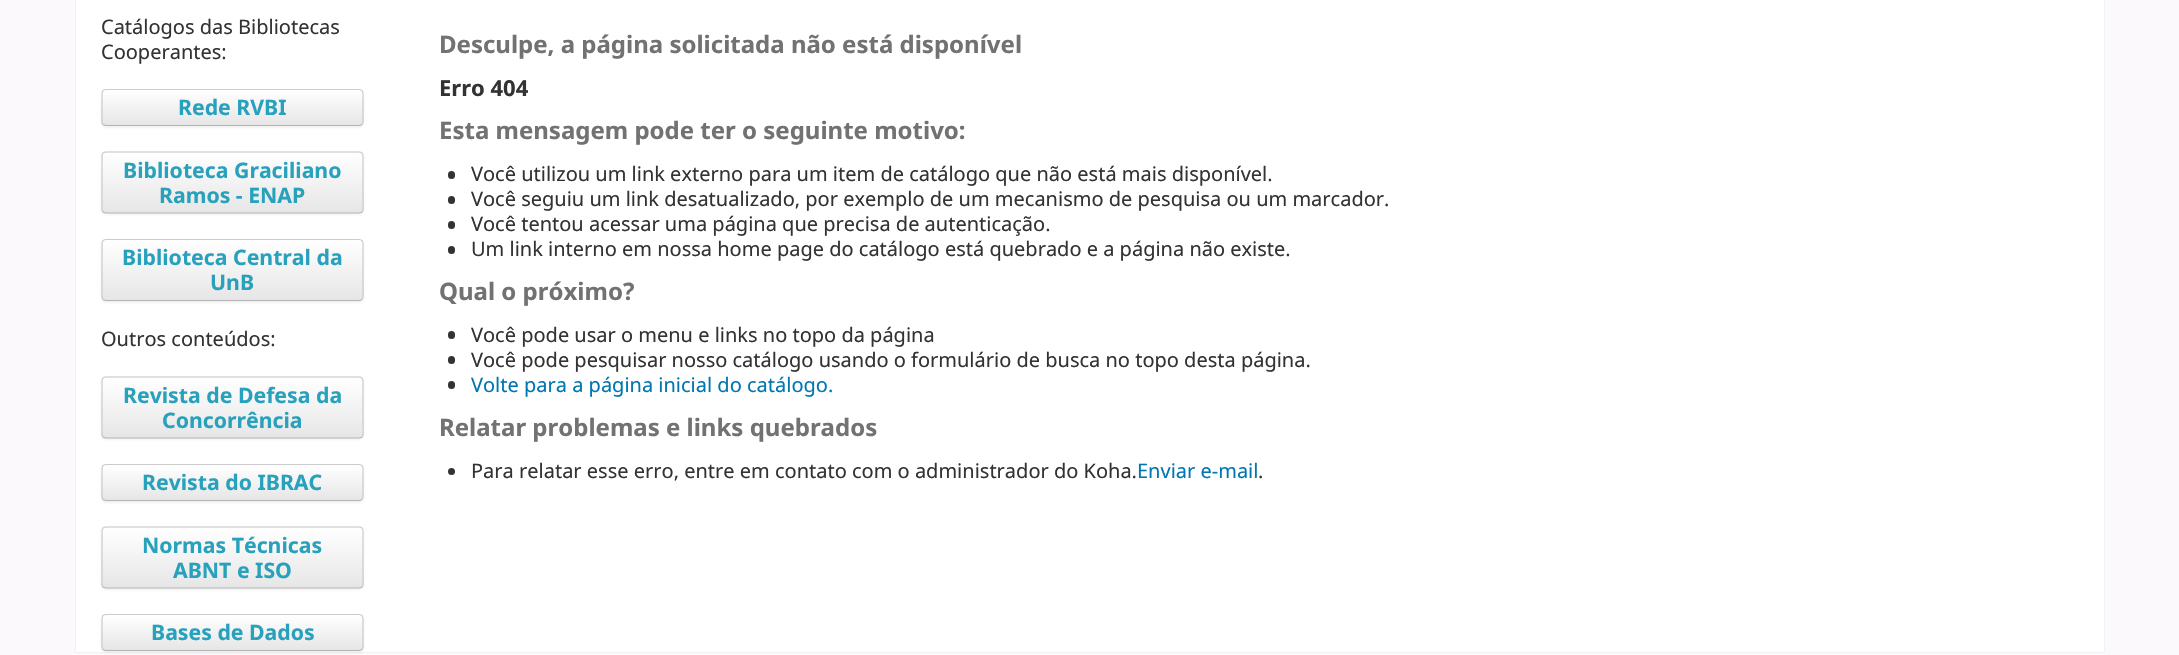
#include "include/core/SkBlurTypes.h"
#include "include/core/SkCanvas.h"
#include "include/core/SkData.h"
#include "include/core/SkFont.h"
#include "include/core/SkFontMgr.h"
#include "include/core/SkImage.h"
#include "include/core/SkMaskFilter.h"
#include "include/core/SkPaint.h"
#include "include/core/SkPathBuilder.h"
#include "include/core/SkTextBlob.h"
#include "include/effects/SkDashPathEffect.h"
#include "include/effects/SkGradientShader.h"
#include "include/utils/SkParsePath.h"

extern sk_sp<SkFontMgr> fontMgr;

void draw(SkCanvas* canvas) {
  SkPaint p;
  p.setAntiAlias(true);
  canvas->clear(SkColorSetRGB(252, 249, 252));
  p.setColor(SK_ColorWHITE);
  canvas->drawRect(SkRect::MakeLTRB(75.5f, -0.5f, 2104.5f, 652.5f), p);
  p.setStyle(SkPaint::kStroke_Style);
  p.setStrokeWidth(1);
  p.setColor(SkColorSetRGB(240, 243, 243));
  canvas->drawRect(SkRect::MakeLTRB(75.5f, -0.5f, 2104.5f, 652.5f), p);
  p.setStyle(SkPaint::kFill_Style);
  p.setColor(SkColorSetARGB(13, 0, 0, 0));
  p.setMaskFilter(SkMaskFilter::MakeBlur(kNormal_SkBlurStyle, 1));
  canvas->drawRoundRect(SkRect::MakeLTRB(101, 90, 364, 128), 5, 5, p);
  p.setMaskFilter(nullptr);
  canvas->save();
  canvas->clipPath(SkPathBuilder().moveTo(106, 89).lineTo(359, 89).cubicTo(362, 89, 364, 91, 364, 94).lineTo(364, 121).cubicTo(364, 124, 362, 126, 359, 126).lineTo(106, 126).cubicTo(103, 126, 101, 124, 101, 121).lineTo(101, 94).cubicTo(101, 91, 103, 89, 106, 89).close().detach(), true);
  {
    const SkColor colors[] = {SK_ColorWHITE, SkColorSetRGB(230, 230, 230)};
    const float stops[] = {0, 1};
    const SkPoint ends[] = {{233, 90}, {233, 125}};
    p.setShader(SkGradientShader::MakeLinear(ends, colors, stops, 2, SkTileMode::kClamp));
    p.setAlpha(255);
  }
  canvas->drawRect(SkRect::MakeLTRB(101, 90, 364, 125), p);
  canvas->restore();
  p.setShader(nullptr);
  p.setColor(SkColorSetARGB(51, 255, 255, 255));
  canvas->drawPath(SkPathBuilder().moveTo(106, 91).lineTo(359, 91).cubicTo(364, 91, 362, 102, 362, 104).lineTo(362, 124).cubicTo(363, 123, 363, 122, 363, 121).lineTo(363, 94).cubicTo(363, 92, 361, 90, 359, 90).lineTo(107, 90).cubicTo(106, 90, 104, 91, 104, 92).close().detach(), p);
  p.setStyle(SkPaint::kStroke_Style);
  p.setStrokeWidth(1.2f);
  p.setColor(SkColorSetRGB(179, 179, 179));
  canvas->drawPath(SkPathBuilder().moveTo(362, 124.5f).cubicTo(361, 125, 360, 125.5f, 359, 125.5f).lineTo(106, 125.5f).cubicTo(105, 125.5f, 104, 125, 103, 124.5f).detach(), p);
  p.setColor(SkColorSetRGB(204, 204, 204));
  canvas->drawPath(SkPathBuilder().moveTo(103, 124.5f).cubicTo(102.5f, 123.5f, 102, 122.5f, 102, 121).lineTo(102, 94).cubicTo(102, 92.5f, 102.5f, 91.5f, 103, 90.5f).cubicTo(104, 90, 105, 89.5f, 106, 89.5f).lineTo(359, 89.5f).cubicTo(360, 89.5f, 361, 90, 362, 90.5f).cubicTo(362.5f, 91.5f, 363, 92.5f, 363, 94).lineTo(363, 121).cubicTo(363, 122.5f, 362.5f, 123.5f, 362, 124.5f).detach(), p);
  p.setStyle(SkPaint::kFill_Style);
  p.setColor(SkColorSetARGB(13, 0, 0, 0));
  p.setMaskFilter(SkMaskFilter::MakeBlur(kNormal_SkBlurStyle, 1));
  canvas->drawRoundRect(SkRect::MakeLTRB(101, 153, 364, 215), 5, 5, p);
  p.setMaskFilter(nullptr);
  p.setColor(SkColorSetRGB(245, 245, 245));
  canvas->drawRoundRect(SkRect::MakeLTRB(101, 151, 364, 214), 5, 5, p);
  canvas->save();
  canvas->clipPath(SkPathBuilder().moveTo(106, 151).lineTo(359, 151).cubicTo(362, 151, 364, 153, 364, 156).lineTo(364, 209).cubicTo(364, 212, 362, 214, 359, 214).lineTo(106, 214).cubicTo(103, 214, 101, 212, 101, 209).lineTo(101, 156).cubicTo(101, 153, 103, 151, 106, 151).close().detach(), true);
  {
    const SkColor colors[] = {SK_ColorWHITE, SkColorSetRGB(230, 230, 230)};
    const float stops[] = {0, 1};
    const SkPoint ends[] = {{233, 152}, {233, 213}};
    p.setShader(SkGradientShader::MakeLinear(ends, colors, stops, 2, SkTileMode::kClamp));
    p.setAlpha(255);
  }
  canvas->drawRect(SkRect::MakeLTRB(101, 153, 364, 213), p);
  canvas->restore();
  p.setShader(nullptr);
  p.setColor(SkColorSetARGB(51, 255, 255, 255));
  canvas->drawPath(SkPathBuilder().moveTo(106, 154).lineTo(359, 154).cubicTo(361, 154, 362, 155, 362, 158).lineTo(362, 210).lineTo(362, 212).cubicTo(362, 211, 363, 210, 363, 209).lineTo(363, 157).cubicTo(363, 155, 361, 153, 359, 153).lineTo(107, 153).cubicTo(106, 153, 105, 154, 104, 154).close().detach(), p);
  p.setStyle(SkPaint::kStroke_Style);
  p.setColor(SkColorSetRGB(179, 179, 179));
  canvas->drawPath(SkPathBuilder().moveTo(362, 212).cubicTo(361, 212.5f, 360, 213, 359, 213).lineTo(106, 213).cubicTo(105, 213, 104, 212.5f, 103, 212).detach(), p);
  p.setColor(SkColorSetRGB(204, 204, 204));
  canvas->drawPath(SkPathBuilder().moveTo(103, 212).cubicTo(102.5f, 211, 102, 210, 102, 209).lineTo(102, 156).cubicTo(102, 155, 102.5f, 154, 103, 153).cubicTo(104, 152.5f, 105, 152, 106, 152).lineTo(359, 152).cubicTo(360, 152, 361, 152.5f, 362, 153).cubicTo(362.5f, 154, 363, 155, 363, 156).lineTo(363, 209).cubicTo(363, 210, 362.5f, 211, 362, 212).detach(), p);
  p.setStyle(SkPaint::kFill_Style);
  p.setColor(SkColorSetARGB(13, 0, 0, 0));
  p.setMaskFilter(SkMaskFilter::MakeBlur(kNormal_SkBlurStyle, 1));
  canvas->drawRoundRect(SkRect::MakeLTRB(101, 240, 364, 303), 5, 5, p);
  p.setMaskFilter(nullptr);
  canvas->save();
  canvas->clipPath(SkPathBuilder().moveTo(106, 239).lineTo(359, 239).cubicTo(362, 239, 364, 241, 364, 244).lineTo(364, 296).cubicTo(364, 299, 362, 301, 359, 301).lineTo(106, 301).cubicTo(103, 301, 101, 299, 101, 296).lineTo(101, 244).cubicTo(101, 241, 103, 239, 106, 239).close().detach(), true);
  {
    const SkColor colors[] = {SK_ColorWHITE, SkColorSetRGB(230, 230, 230)};
    const float stops[] = {0, 1};
    const SkPoint ends[] = {{233, 240}, {233, 300}};
    p.setShader(SkGradientShader::MakeLinear(ends, colors, stops, 2, SkTileMode::kClamp));
    p.setAlpha(255);
  }
  canvas->drawRect(SkRect::MakeLTRB(101, 240, 364, 300), p);
  canvas->restore();
  p.setShader(nullptr);
  p.setColor(SkColorSetARGB(51, 255, 255, 255));
  canvas->drawPath(SkPathBuilder().moveTo(106, 241).lineTo(359, 241).cubicTo(361, 241, 362, 243, 362, 245).lineTo(362, 299).cubicTo(363, 298, 363, 297, 363, 296).lineTo(363, 244).cubicTo(363, 242, 361, 240, 359, 240).lineTo(107, 240).cubicTo(106, 240, 104, 241, 104, 242).close().detach(), p);
  p.setStyle(SkPaint::kStroke_Style);
  p.setColor(SkColorSetRGB(179, 179, 179));
  canvas->drawPath(SkPathBuilder().moveTo(362, 299.5f).cubicTo(361, 300, 360, 300.5f, 359, 300.5f).lineTo(106, 300.5f).cubicTo(105, 300.5f, 104, 300, 103, 299.5f).detach(), p);
  p.setColor(SkColorSetRGB(204, 204, 204));
  canvas->drawPath(SkPathBuilder().moveTo(103, 299.5f).cubicTo(102.5f, 298.5f, 102, 297.5f, 102, 296).lineTo(102, 244).cubicTo(102, 242.5f, 102.5f, 241.5f, 103, 240.5f).cubicTo(104, 240, 105, 239.5f, 106, 239.5f).lineTo(359, 239.5f).cubicTo(360, 239.5f, 361, 240, 362, 240.5f).cubicTo(362.5f, 241.5f, 363, 242.5f, 363, 244).lineTo(363, 296).cubicTo(363, 297.5f, 362.5f, 298.5f, 362, 299.5f).detach(), p);
  p.setStyle(SkPaint::kFill_Style);
  p.setColor(SkColorSetARGB(13, 0, 0, 0));
  p.setMaskFilter(SkMaskFilter::MakeBlur(kNormal_SkBlurStyle, 1));
  canvas->drawRoundRect(SkRect::MakeLTRB(101, 378, 364, 440), 5, 5, p);
  p.setMaskFilter(nullptr);
  p.setColor(SkColorSetRGB(245, 245, 245));
  canvas->drawRoundRect(SkRect::MakeLTRB(101, 376, 364, 439), 5, 5, p);
  canvas->save();
  canvas->clipPath(SkPathBuilder().moveTo(106, 376).lineTo(359, 376).cubicTo(362, 376, 364, 378, 364, 381).lineTo(364, 434).cubicTo(364, 437, 362, 439, 359, 439).lineTo(106, 439).cubicTo(103, 439, 101, 437, 101, 434).lineTo(101, 381).cubicTo(101, 378, 103, 376, 106, 376).close().detach(), true);
  {
    const SkColor colors[] = {SK_ColorWHITE, SkColorSetRGB(230, 230, 230)};
    const float stops[] = {0, 1};
    const SkPoint ends[] = {{233, 378}, {233, 438}};
    p.setShader(SkGradientShader::MakeLinear(ends, colors, stops, 2, SkTileMode::kClamp));
    p.setAlpha(255);
  }
  canvas->drawRect(SkRect::MakeLTRB(101, 378, 364, 438), p);
  canvas->restore();
  p.setShader(nullptr);
  p.setColor(SkColorSetARGB(51, 255, 255, 255));
  canvas->drawPath(SkPathBuilder().moveTo(106, 379).lineTo(359, 379).cubicTo(361, 379, 362, 380, 362, 382).lineTo(362, 435).lineTo(362, 437).cubicTo(362, 436, 363, 435, 363, 434).lineTo(363, 382).cubicTo(363, 380, 361, 378, 359, 378).lineTo(107, 378).cubicTo(106, 378, 105, 379, 104, 379).close().detach(), p);
  p.setStyle(SkPaint::kStroke_Style);
  p.setColor(SkColorSetRGB(179, 179, 179));
  canvas->drawPath(SkPathBuilder().moveTo(362, 437).cubicTo(361, 437.5f, 360, 438, 359, 438).lineTo(106, 438).cubicTo(105, 438, 104, 437.5f, 103, 437).detach(), p);
  p.setColor(SkColorSetRGB(204, 204, 204));
  canvas->drawPath(SkPathBuilder().moveTo(103, 437).cubicTo(102.5f, 436, 102, 435, 102, 434).lineTo(102, 381).cubicTo(102, 380, 102.5f, 379, 103, 378).cubicTo(104, 377.5f, 105, 377, 106, 377).lineTo(359, 377).cubicTo(360, 377, 361, 377.5f, 362, 378).cubicTo(362.5f, 379, 363, 380, 363, 381).lineTo(363, 434).cubicTo(363, 435, 362.5f, 436, 362, 437).detach(), p);
  p.setStyle(SkPaint::kFill_Style);
  p.setColor(SkColorSetARGB(13, 0, 0, 0));
  p.setMaskFilter(SkMaskFilter::MakeBlur(kNormal_SkBlurStyle, 1));
  canvas->drawRoundRect(SkRect::MakeLTRB(101, 465, 364, 503), 5, 5, p);
  p.setMaskFilter(nullptr);
  canvas->save();
  canvas->clipPath(SkPathBuilder().moveTo(106, 464).lineTo(359, 464).cubicTo(362, 464, 364, 466, 364, 469).lineTo(364, 496).cubicTo(364, 499, 362, 501, 359, 501).lineTo(106, 501).cubicTo(103, 501, 101, 499, 101, 496).lineTo(101, 469).cubicTo(101, 466, 103, 464, 106, 464).close().detach(), true);
  {
    const SkColor colors[] = {SK_ColorWHITE, SkColorSetRGB(230, 230, 230)};
    const float stops[] = {0, 1};
    const SkPoint ends[] = {{233, 465}, {233, 500}};
    p.setShader(SkGradientShader::MakeLinear(ends, colors, stops, 2, SkTileMode::kClamp));
    p.setAlpha(255);
  }
  canvas->drawRect(SkRect::MakeLTRB(101, 465, 364, 500), p);
  canvas->restore();
  p.setShader(nullptr);
  p.setColor(SkColorSetARGB(51, 255, 255, 255));
  canvas->drawPath(SkPathBuilder().moveTo(106, 466).lineTo(359, 466).cubicTo(364, 466, 362, 477, 362, 479).lineTo(362, 499).cubicTo(363, 498, 363, 497, 363, 496).lineTo(363, 469).cubicTo(363, 467, 361, 465, 359, 465).lineTo(107, 465).cubicTo(106, 465, 104, 466, 104, 467).close().detach(), p);
  p.setStyle(SkPaint::kStroke_Style);
  p.setColor(SkColorSetRGB(179, 179, 179));
  canvas->drawPath(SkPathBuilder().moveTo(362, 499.5f).cubicTo(361, 500, 360, 500.5f, 359, 500.5f).lineTo(106, 500.5f).cubicTo(105, 500.5f, 104, 500, 103, 499.5f).detach(), p);
  p.setColor(SkColorSetRGB(204, 204, 204));
  canvas->drawPath(SkPathBuilder().moveTo(103, 499.5f).cubicTo(102.5f, 498.5f, 102, 497.5f, 102, 496).lineTo(102, 469).cubicTo(102, 467.5f, 102.5f, 466.5f, 103, 465.5f).cubicTo(104, 465, 105, 464.5f, 106, 464.5f).lineTo(359, 464.5f).cubicTo(360, 464.5f, 361, 465, 362, 465.5f).cubicTo(362.5f, 466.5f, 363, 467.5f, 363, 469).lineTo(363, 496).cubicTo(363, 497.5f, 362.5f, 498.5f, 362, 499.5f).detach(), p);
  p.setStyle(SkPaint::kFill_Style);
  p.setColor(SkColorSetARGB(13, 0, 0, 0));
  p.setMaskFilter(SkMaskFilter::MakeBlur(kNormal_SkBlurStyle, 1));
  canvas->drawRoundRect(SkRect::MakeLTRB(101, 528, 364, 590), 5, 5, p);
  p.setMaskFilter(nullptr);
  p.setColor(SkColorSetRGB(245, 245, 245));
  canvas->drawRoundRect(SkRect::MakeLTRB(101, 526, 364, 589), 5, 5, p);
  canvas->save();
  canvas->clipPath(SkPathBuilder().moveTo(106, 526).lineTo(359, 526).cubicTo(362, 526, 364, 528, 364, 531).lineTo(364, 584).cubicTo(364, 587, 362, 589, 359, 589).lineTo(106, 589).cubicTo(103, 589, 101, 587, 101, 584).lineTo(101, 531).cubicTo(101, 528, 103, 526, 106, 526).close().detach(), true);
  {
    const SkColor colors[] = {SK_ColorWHITE, SkColorSetRGB(230, 230, 230)};
    const float stops[] = {0, 1};
    const SkPoint ends[] = {{233, 528}, {233, 588}};
    p.setShader(SkGradientShader::MakeLinear(ends, colors, stops, 2, SkTileMode::kClamp));
    p.setAlpha(255);
  }
  canvas->drawRect(SkRect::MakeLTRB(101, 528, 364, 588), p);
  canvas->restore();
  p.setShader(nullptr);
  p.setColor(SkColorSetARGB(51, 255, 255, 255));
  canvas->drawPath(SkPathBuilder().moveTo(106, 529).lineTo(359, 529).cubicTo(361, 529, 362, 530, 362, 532).lineTo(362, 585).lineTo(362, 587).cubicTo(362, 586, 363, 585, 363, 584).lineTo(363, 532).cubicTo(363, 530, 361, 528, 359, 528).lineTo(107, 528).cubicTo(106, 528, 105, 529, 104, 529).close().detach(), p);
  p.setStyle(SkPaint::kStroke_Style);
  p.setColor(SkColorSetRGB(179, 179, 179));
  canvas->drawPath(SkPathBuilder().moveTo(362, 587).cubicTo(361, 587.5f, 360, 588, 359, 588).lineTo(106, 588).cubicTo(105, 588, 104, 587.5f, 103, 587).detach(), p);
  p.setColor(SkColorSetRGB(204, 204, 204));
  canvas->drawPath(SkPathBuilder().moveTo(103, 587).cubicTo(102.5f, 586, 102, 585, 102, 584).lineTo(102, 531).cubicTo(102, 530, 102.5f, 529, 103, 528).cubicTo(104, 527.5f, 105, 527, 106, 527).lineTo(359, 527).cubicTo(360, 527, 361, 527.5f, 362, 528).cubicTo(362.5f, 529, 363, 530, 363, 531).lineTo(363, 584).cubicTo(363, 585, 362.5f, 586, 362, 587).detach(), p);
  p.setStyle(SkPaint::kFill_Style);
  p.setColor(SkColorSetARGB(13, 0, 0, 0));
  p.setMaskFilter(SkMaskFilter::MakeBlur(kNormal_SkBlurStyle, 1));
  canvas->drawRoundRect(SkRect::MakeLTRB(101, 615, 364, 653), 5, 5, p);
  p.setMaskFilter(nullptr);
  canvas->save();
  canvas->clipPath(SkPathBuilder().moveTo(106, 614).lineTo(359, 614).cubicTo(362, 614, 364, 616, 364, 619).lineTo(364, 646).cubicTo(364, 649, 362, 651, 359, 651).lineTo(106, 651).cubicTo(103, 651, 101, 649, 101, 646).lineTo(101, 619).cubicTo(101, 616, 103, 614, 106, 614).close().detach(), true);
  {
    const SkColor colors[] = {SK_ColorWHITE, SkColorSetRGB(230, 230, 230)};
    const float stops[] = {0, 1};
    const SkPoint ends[] = {{233, 615}, {233, 650}};
    p.setShader(SkGradientShader::MakeLinear(ends, colors, stops, 2, SkTileMode::kClamp));
    p.setAlpha(255);
  }
  canvas->drawRect(SkRect::MakeLTRB(101, 615, 364, 650), p);
  canvas->restore();
  p.setShader(nullptr);
  p.setColor(SkColorSetARGB(51, 255, 255, 255));
  canvas->drawPath(SkPathBuilder().moveTo(106, 616).lineTo(359, 616).cubicTo(364, 616, 362, 627, 362, 629).lineTo(362, 649).cubicTo(363, 648, 363, 647, 363, 646).lineTo(363, 619).cubicTo(363, 617, 361, 615, 359, 615).lineTo(107, 615).cubicTo(106, 615, 104, 616, 104, 617).close().detach(), p);
  p.setStyle(SkPaint::kStroke_Style);
  p.setColor(SkColorSetRGB(179, 179, 179));
  canvas->drawPath(SkPathBuilder().moveTo(362, 649.5f).cubicTo(361, 650, 360, 650.5f, 359, 650.5f).lineTo(106, 650.5f).cubicTo(105, 650.5f, 104, 650, 103, 649.5f).detach(), p);
  p.setColor(SkColorSetRGB(204, 204, 204));
  canvas->drawPath(SkPathBuilder().moveTo(103, 649.5f).cubicTo(102.5f, 648.5f, 102, 647.5f, 102, 646).lineTo(102, 619).cubicTo(102, 617.5f, 102.5f, 616.5f, 103, 615.5f).cubicTo(104, 615, 105, 614.5f, 106, 614.5f).lineTo(359, 614.5f).cubicTo(360, 614.5f, 361, 615, 362, 615.5f).cubicTo(362.5f, 616.5f, 363, 617.5f, 363, 619).lineTo(363, 646).cubicTo(363, 647.5f, 362.5f, 648.5f, 362, 649.5f).detach(), p);
  p.setStyle(SkPaint::kFill_Style);
  p.setColor(SkColorSetRGB(51, 51, 51));
  canvas->drawRoundRect(SkRect::MakeLTRB(448, 171, 455, 179), 3.5f, 3.5f, p);
  canvas->drawRoundRect(SkRect::MakeLTRB(448, 196, 455, 204), 3.5f, 3.5f, p);
  canvas->drawRoundRect(SkRect::MakeLTRB(448, 221, 455, 229), 3.5f, 3.5f, p);
  canvas->drawRoundRect(SkRect::MakeLTRB(448, 246, 455, 254), 3.5f, 3.5f, p);
  canvas->drawRoundRect(SkRect::MakeLTRB(448, 331, 455, 339), 3.5f, 3.5f, p);
  canvas->drawRoundRect(SkRect::MakeLTRB(448, 356, 455, 364), 3.5f, 3.5f, p);
  canvas->drawRoundRect(SkRect::MakeLTRB(448, 381, 455, 389), 3.5f, 3.5f, p);
  canvas->drawCircle(451.5f, 471.5f, 3.5f, p);
  SkFont font1(fontMgr->matchFamilyStyle("Noto Sans", SkFontStyle::Normal()), 20);
  font1.setSubpixel(true);
  canvas->drawString("Catálogos das Bibliotecas", 101, 34, font1, p);
  canvas->drawString("Cooperantes:", 101, 59, font1, p);
  SkFont font2(fontMgr->matchFamilyStyle("Noto Sans", SkFontStyle::Bold()), 21.25f);
  font2.setSubpixel(true);
  p.setColor(SkColorSetRGB(40, 161, 188));
  canvas->drawString("Rede RVBI", 178, 115, font2, p);
  canvas->drawString("Biblioteca Graciliano", 123, 178, font2, p);
  canvas->drawString("Ramos - ENAP", 159, 203, font2, p);
  canvas->drawString("Biblioteca Central da", 122, 265, font2, p);
  canvas->drawString("UnB", 210, 290, font2, p);
  p.setColor(SkColorSetRGB(51, 51, 51));
  canvas->drawString("Outros conteúdos:", 101, 346, font1, p);
  p.setColor(SkColorSetRGB(40, 161, 188));
  canvas->drawString("Revista de Defesa da", 123, 403, font2, p);
  canvas->drawString("Concorrência", 162, 428, font2, p);
  canvas->drawString("Revista do IBRAC", 142, 490, font2, p);
  canvas->drawString("Normas Técnicas", 142, 553, font2, p);
  canvas->drawString("ABNT e ISO", 173, 578, font2, p);
  canvas->drawString("Bases de Dados", 151, 640, font2, p);
  SkFont font3(fontMgr->matchFamilyStyle("Noto Sans", SkFontStyle::Bold()), 24);
  font3.setSubpixel(true);
  p.setColor(SkColorSetRGB(114, 114, 114));
  canvas->drawString("Desculpe, a página solicitada não está disponível", 439, 53, font3, p);
  SkFont font4(fontMgr->matchFamilyStyle("Noto Sans", SkFontStyle::Bold()), 22);
  font4.setSubpixel(true);
  p.setColor(SkColorSetRGB(51, 51, 51));
  canvas->drawString("Erro 404", 439, 96, font4, p);
  p.setColor(SkColorSetRGB(114, 114, 114));
  canvas->drawString("Esta mensagem pode ter o seguinte motivo:", 439, 139, font3, p);
  p.setColor(SkColorSetRGB(51, 51, 51));
  canvas->drawString("Você utilizou um link externo para um item de catálogo que não está mais disponível.", 471, 181, font1, p);
  canvas->drawString("Você seguiu um link desatualizado, por exemplo de um mecanismo de pesquisa ou um marcador.", 471, 206, font1, p);
  canvas->drawString("Você tentou acessar uma página que precisa de autenticação.", 471, 231, font1, p);
  canvas->drawString("Um link interno em nossa home page do catálogo está quebrado e a página não existe.", 471, 256, font1, p);
  p.setColor(SkColorSetRGB(114, 114, 114));
  canvas->drawString("Qual o próximo?", 439, 300, font3, p);
  p.setColor(SkColorSetRGB(51, 51, 51));
  canvas->drawString("Você pode usar o menu e links no topo da página", 471, 342, font1, p);
  canvas->drawString("Você pode pesquisar nosso catálogo usando o formulário de busca no topo desta página.", 471, 367, font1, p);
  p.setColor(SkColorSetRGB(0, 118, 178));
  canvas->drawString("Volte para a página inicial do catálogo.", 471, 392, font1, p);
  p.setColor(SkColorSetRGB(114, 114, 114));
  canvas->drawString("Relatar problemas e links quebrados", 439, 436, font3, p);
  p.setColor(SkColorSetRGB(51, 51, 51));
  canvas->drawString("Para relatar esse erro, entre em contato com o administrador do Koha.", 471, 478, font1, p);
  p.setColor(SkColorSetRGB(0, 118, 178));
  canvas->drawString("Enviar e-mail", 1137, 478, font1, p);
  p.setColor(SkColorSetRGB(51, 51, 51));
  canvas->drawString(".", 1258, 478, font1, p);
}
